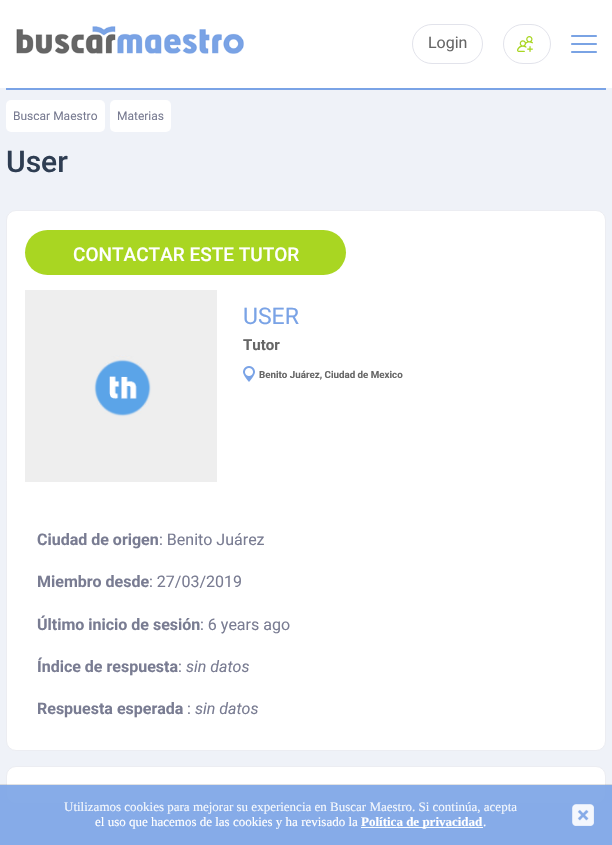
#include "include/core/SkBlurTypes.h"
#include "include/core/SkCanvas.h"
#include "include/core/SkData.h"
#include "include/core/SkFont.h"
#include "include/core/SkFontMgr.h"
#include "include/core/SkImage.h"
#include "include/core/SkMaskFilter.h"
#include "include/core/SkPaint.h"
#include "include/core/SkPathBuilder.h"
#include "include/core/SkTextBlob.h"
#include "include/effects/SkDashPathEffect.h"
#include "include/effects/SkGradientShader.h"
#include "include/utils/SkParsePath.h"

extern sk_sp<SkFontMgr> fontMgr;

void draw(SkCanvas* canvas) {
  SkPaint p;
  p.setAntiAlias(true);
  canvas->clear(SK_ColorWHITE);
  canvas->drawImageRect(SkImages::DeferredFromEncodedData(SkData::MakeFromFileName("images/1.png")), SkRect::MakeLTRB(16, 26, 244, 54), SkSamplingOptions());
  p.setStyle(SkPaint::kStroke_Style);
  p.setStrokeWidth(1);
  p.setColor(SkColorSetRGB(226, 227, 235));
  canvas->drawRoundRect(SkRect::MakeLTRB(412.5f, 24.5f, 482.5f, 63.5f), 19.5f, 19.5f, p);
  canvas->drawRoundRect(SkRect::MakeLTRB(503.5f, 24.5f, 550.5f, 63.5f), 19.5f, 19.5f, p);
  canvas->drawImageRect(SkImages::DeferredFromEncodedData(SkData::MakeFromFileName("images/2.png")), SkRect::MakeLTRB(517, 36, 533, 52), SkSamplingOptions());
  canvas->drawImageRect(SkImages::DeferredFromEncodedData(SkData::MakeFromFileName("images/3.png")), SkRect::MakeLTRB(571, 35, 597, 53), SkSamplingOptions());
  p.setStyle(SkPaint::kFill_Style);
  p.setColor(SkColorSetRGB(239, 242, 248));
  canvas->drawRect(SkRect::MakeLTRB(0, 88, 612, 845), p);
  p.setColor(SkColorSetRGB(122, 163, 230));
  canvas->drawRect(SkRect::MakeLTRB(6, 88, 606, 90), p);
  p.setColor(SK_ColorWHITE);
  canvas->drawRoundRect(SkRect::MakeLTRB(6, 100, 105, 132), 5, 5, p);
  canvas->drawRoundRect(SkRect::MakeLTRB(110, 100, 171, 132), 5, 5, p);
  canvas->drawRoundRect(SkRect::MakeLTRB(6.5f, 210.5f, 605.5f, 750.5f), 9.5f, 9.5f, p);
  p.setStyle(SkPaint::kStroke_Style);
  p.setColor(SkColorSetRGB(236, 237, 242));
  canvas->drawRoundRect(SkRect::MakeLTRB(6.5f, 210.5f, 605.5f, 750.5f), 9.5f, 9.5f, p);
  p.setStyle(SkPaint::kFill_Style);
  p.setColor(SkColorSetRGB(169, 214, 34));
  canvas->drawRoundRect(SkRect::MakeLTRB(25, 230, 346, 275), 22.5f, 22.5f, p);
  canvas->drawImageRect(SkImages::DeferredFromEncodedData(SkData::MakeFromFileName("images/4.png")), SkRect::MakeLTRB(25, 290, 217, 482), SkSamplingOptions());
  canvas->drawImageRect(SkImages::DeferredFromEncodedData(SkData::MakeFromFileName("images/5.png")), SkRect::MakeLTRB(243, 366, 255, 382), SkSamplingOptions());
  p.setColor(SK_ColorWHITE);
  canvas->drawRoundRect(SkRect::MakeLTRB(6.5f, 766.5f, 605.5f, 803.5f), 9.5f, 9.5f, p);
  p.setStyle(SkPaint::kStroke_Style);
  p.setColor(SkColorSetRGB(236, 237, 242));
  canvas->drawRoundRect(SkRect::MakeLTRB(6.5f, 766.5f, 605.5f, 803.5f), 9.5f, 9.5f, p);
  canvas->save();
  canvas->clipRect(SkRect::MakeLTRB(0, 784, 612, 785));
  p.setStyle(SkPaint::kFill_Style);
  p.setColor(SkColorSetARGB(230, 64, 64, 64));
  p.setMaskFilter(SkMaskFilter::MakeBlur(kNormal_SkBlurStyle, 0.5f));
  canvas->drawRect(SkRect::MakeLTRB(-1, 785, 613, 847), p);
  p.setMaskFilter(nullptr);
  canvas->restore();
  p.setColor(SkColorSetARGB(230, 122, 163, 230));
  canvas->drawRect(SkRect::MakeLTRB(0, 785, 612, 845), p);
  p.setColor(SkColorSetRGB(253, 254, 254));
  canvas->drawRect(SkRect::MakeLTRB(361, 827, 483, 828), p);
  canvas->drawImageRect(SkImages::DeferredFromEncodedData(SkData::MakeFromFileName("images/6.png")), SkRect::MakeLTRB(572, 804, 594, 826), SkSamplingOptions());
  SkFont font1(fontMgr->matchFamilyStyle("Roboto", SkFontStyle::Normal()), 16);
  font1.setSubpixel(true);
  p.setColor(SkColorSetRGB(102, 102, 102));
  canvas->drawString("Login", 428, 48, font1, p);
  SkFont font2(fontMgr->matchFamilyStyle("Roboto", SkFontStyle::Normal()), 12);
  font2.setSubpixel(true);
  p.setColor(SkColorSetRGB(121, 124, 146));
  canvas->drawString("Buscar Maestro", 13, 120, font2, p);
  canvas->drawString("Materias", 117, 120, font2, p);
  SkFont font3(fontMgr->matchFamilyStyle("Roboto", SkFontStyle(500, SkFontStyle::kNormal_Width, SkFontStyle::kUpright_Slant)), 30);
  font3.setSubpixel(true);
  p.setColor(SkColorSetRGB(46, 61, 82));
  canvas->drawString("User", 6, 172, font3, p);
  SkFont font4(fontMgr->matchFamilyStyle("Roboto", SkFontStyle(500, SkFontStyle::kNormal_Width, SkFontStyle::kUpright_Slant)), 19);
  font4.setSubpixel(true);
  p.setColor(SK_ColorWHITE);
  canvas->drawString("CONTACTAR ESTE TUTOR", 73, 261, font4, p);
  SkFont font5(fontMgr->matchFamilyStyle("Roboto", SkFontStyle::Normal()), 23);
  font5.setSubpixel(true);
  p.setColor(SkColorSetRGB(122, 163, 230));
  canvas->drawString("USER", 243, 324, font5, p);
  SkFont font6(fontMgr->matchFamilyStyle("Roboto", SkFontStyle::Bold()), 15);
  font6.setSubpixel(true);
  p.setColor(SkColorSetRGB(102, 102, 102));
  canvas->drawString("Tutor", 243, 350, font6, p);
  SkFont font7(fontMgr->matchFamilyStyle("Roboto", SkFontStyle::Bold()), 9.75f);
  font7.setSubpixel(true);
  canvas->drawString("Benito Juárez, Ciudad de Mexico", 259, 378, font7, p);
  SkFont font8(fontMgr->matchFamilyStyle("Roboto", SkFontStyle::Bold()), 16);
  font8.setSubpixel(true);
  p.setColor(SkColorSetRGB(121, 124, 146));
  canvas->drawString("Ciudad de origen", 37, 545, font8, p);
  canvas->drawString(": Benito Juárez", 159, 545, font1, p);
  canvas->drawString("Miembro desde", 37, 587, font8, p);
  canvas->drawString(": 27/03/2019", 149, 587, font1, p);
  canvas->drawString("Último inicio de sesión", 37, 630, font8, p);
  canvas->drawString(": 6 years ago", 200, 630, font1, p);
  canvas->drawString("Índice de respuesta", 37, 672, font8, p);
  canvas->drawString(":", 178, 672, font1, p);
  SkFont font9(fontMgr->matchFamilyStyle("Roboto", SkFontStyle::Italic()), 16);
  font9.setSubpixel(true);
  canvas->drawString("sin datos", 186, 672, font9, p);
  canvas->drawString("Respuesta esperada", 37, 714, font8, p);
  canvas->drawString(":", 187, 714, font1, p);
  canvas->drawString("sin datos", 195, 714, font9, p);
  SkFont font10(fontMgr->matchFamilyStyle("Liberation Serif", SkFontStyle::Normal()), 13);
  font10.setSubpixel(true);
  p.setColor(SkColorSetRGB(243, 247, 253));
  canvas->drawString("Utilizamos cookies para mejorar su experiencia en Buscar Maestro. Si continúa, acepta", 64, 811, font10, p);
  p.setColor(SK_ColorWHITE);
  canvas->drawString("el uso que hacemos de las cookies y ha revisado la", 95, 826, font10, p);
  SkFont font11(fontMgr->matchFamilyStyle("Liberation Serif", SkFontStyle::Bold()), 13);
  font11.setSubpixel(true);
  canvas->drawString("Política de privacidad", 361, 826, font11, p);
  canvas->drawString(".", 483, 826, font10, p);
}
